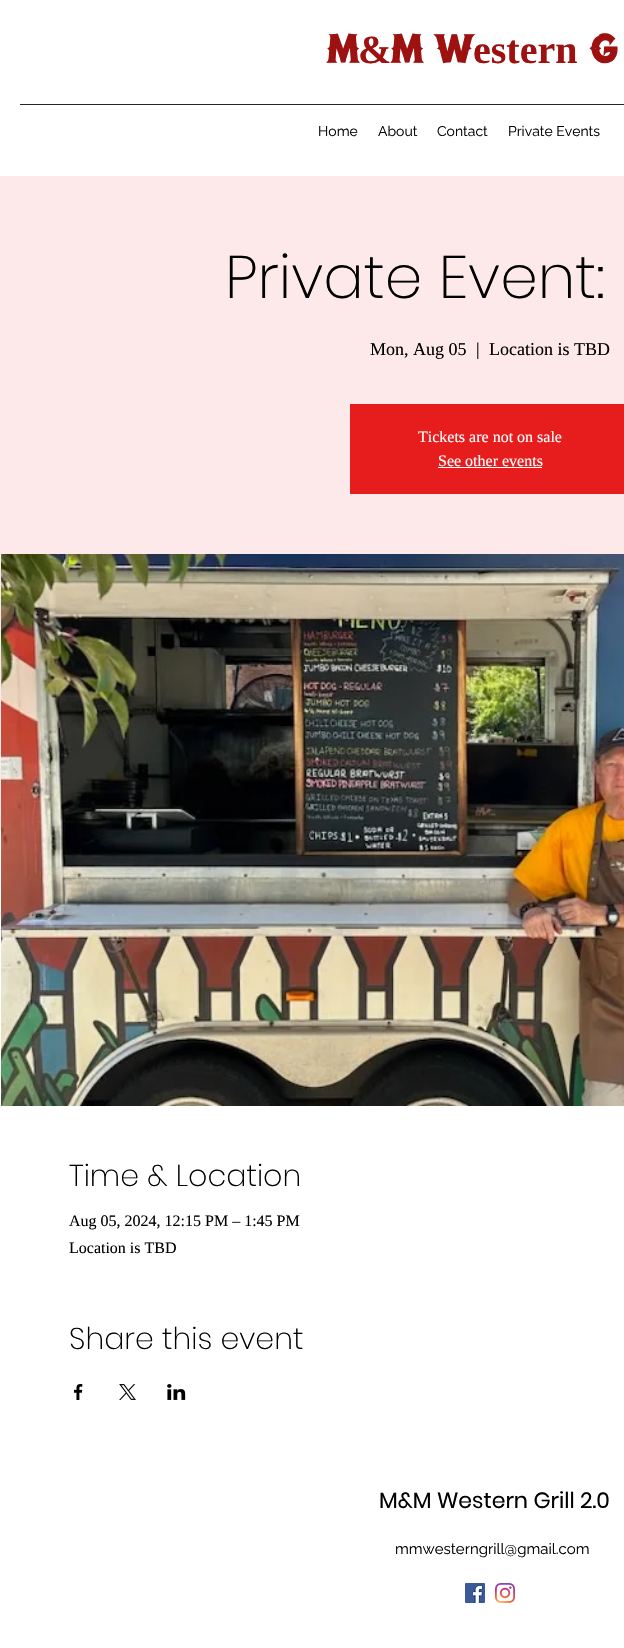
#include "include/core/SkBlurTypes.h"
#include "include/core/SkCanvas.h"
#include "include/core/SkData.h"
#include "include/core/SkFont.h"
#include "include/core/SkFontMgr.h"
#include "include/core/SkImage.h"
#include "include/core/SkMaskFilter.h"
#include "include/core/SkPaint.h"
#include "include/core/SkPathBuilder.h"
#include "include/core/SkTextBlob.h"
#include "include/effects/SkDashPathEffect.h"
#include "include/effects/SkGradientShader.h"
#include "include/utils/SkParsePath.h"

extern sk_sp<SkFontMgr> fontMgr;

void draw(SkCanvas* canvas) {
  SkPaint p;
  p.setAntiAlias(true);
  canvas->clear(SK_ColorWHITE);
  p.setColor(SkColorSetRGB(38, 38, 38));
  canvas->drawRect(SkRect::MakeLTRB(20, 104, 624, 105), p);
  p.setColor(SkColorSetRGB(253, 233, 233));
  canvas->drawRect(SkRect::MakeLTRB(0, 176, 624, 830), p);
  p.setColor(SkColorSetRGB(231, 29, 29));
  canvas->drawRect(SkRect::MakeLTRB(350, 404, 624, 494), p);
  p.setColor(SK_ColorWHITE);
  canvas->drawRect(SkRect::MakeLTRB(438, 467, 542, 468), p);
  canvas->drawImageRect(SkImages::DeferredFromEncodedData(SkData::MakeFromFileName("images/1.png")), SkRect::MakeLTRB(1, 554, 624, 1106), SkSamplingOptions());
  canvas->drawImageRect(SkImages::DeferredFromEncodedData(SkData::MakeFromFileName("images/2.png")), SkRect::MakeLTRB(74, 1384, 83, 1400), SkSamplingOptions());
  canvas->drawImageRect(SkImages::DeferredFromEncodedData(SkData::MakeFromFileName("images/3.png")), SkRect::MakeLTRB(119, 1384, 136, 1400), SkSamplingOptions());
  canvas->drawImageRect(SkImages::DeferredFromEncodedData(SkData::MakeFromFileName("images/4.png")), SkRect::MakeLTRB(167, 1384, 186, 1400), SkSamplingOptions());
  canvas->drawImageRect(SkImages::DeferredFromEncodedData(SkData::MakeFromFileName("images/5.png")), SkRect::MakeLTRB(465, 1583, 485, 1603), SkSamplingOptions());
  canvas->drawImageRect(SkImages::DeferredFromEncodedData(SkData::MakeFromFileName("images/6.png")), SkRect::MakeLTRB(495, 1583, 515, 1603), SkSamplingOptions());
  SkFont font1(fontMgr->matchFamilyStyle("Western", SkFontStyle::Bold()), 40);
  font1.setSubpixel(true);
  p.setColor(SkColorSetRGB(157, 17, 17));
  canvas->drawString("M", 327, 63, font1, p);
  SkFont font2(fontMgr->matchFamilyStyle("Liberation Serif", SkFontStyle::Bold()), 40);
  font2.setSubpixel(true);
  canvas->drawString("&", 358, 63, font2, p);
  canvas->drawString("M W", 391, 63, font1, p);
  canvas->drawString("estern", 473, 63, font2, p);
  canvas->drawString("G", 590, 63, font1, p);
  SkFont font3(fontMgr->matchFamilyStyle("Raleway", SkFontStyle::Normal()), 14);
  font3.setSubpixel(true);
  p.setColor(SK_ColorBLACK);
  canvas->drawString("Home", 318, 136, font3, p);
  canvas->drawString("About", 378, 136, font3, p);
  canvas->drawString("Contact", 437, 136, font3, p);
  canvas->drawString("Private Events", 508, 136, font3, p);
  SkFont font4(fontMgr->matchFamilyStyle("Poppins", SkFontStyle(200, SkFontStyle::kNormal_Width, SkFontStyle::kUpright_Slant)), 60);
  font4.setSubpixel(true);
  canvas->drawString("Private Event:", 225, 298, font4, p);
  SkFont font5(fontMgr->matchFamilyStyle("Liberation Serif", SkFontStyle::Normal()), 18);
  font5.setSubpixel(true);
  canvas->drawString("Mon, Aug 05", 370, 355, font5, p);
  canvas->drawString("|", 476, 355, font5, p);
  canvas->drawString("Location is TBD", 489, 355, font5, p);
  SkFont font6(fontMgr->matchFamilyStyle("Liberation Serif", SkFontStyle::Normal()), 16);
  font6.setSubpixel(true);
  p.setColor(SK_ColorWHITE);
  canvas->drawString("Tickets are not on sale", 418, 442, font6, p);
  canvas->drawString("See other events", 438, 466, font6, p);
  SkFont font7(fontMgr->matchFamilyStyle("Poppins", SkFontStyle(200, SkFontStyle::kNormal_Width, SkFontStyle::kUpright_Slant)), 30);
  font7.setSubpixel(true);
  p.setColor(SK_ColorBLACK);
  canvas->drawString("Time & Location", 69, 1186, font7, p);
  canvas->drawString("Aug 05, 2024, 12:15 PM – 1:45 PM", 69, 1226, font6, p);
  canvas->drawString("Location is TBD", 69, 1253, font6, p);
  canvas->drawString("Share this event", 69, 1349, font7, p);
  SkFont font8(fontMgr->matchFamilyStyle("Poppins", SkFontStyle::Normal()), 22);
  font8.setSubpixel(true);
  canvas->drawString("M&M Western Grill 2.0", 379, 1508, font8, p);
  SkFont font9(fontMgr->matchFamilyStyle("Raleway", SkFontStyle::Normal()), 15);
  font9.setSubpixel(true);
  canvas->drawString("mmwesterngrill@gmail.com", 395, 1554, font9, p);
}
